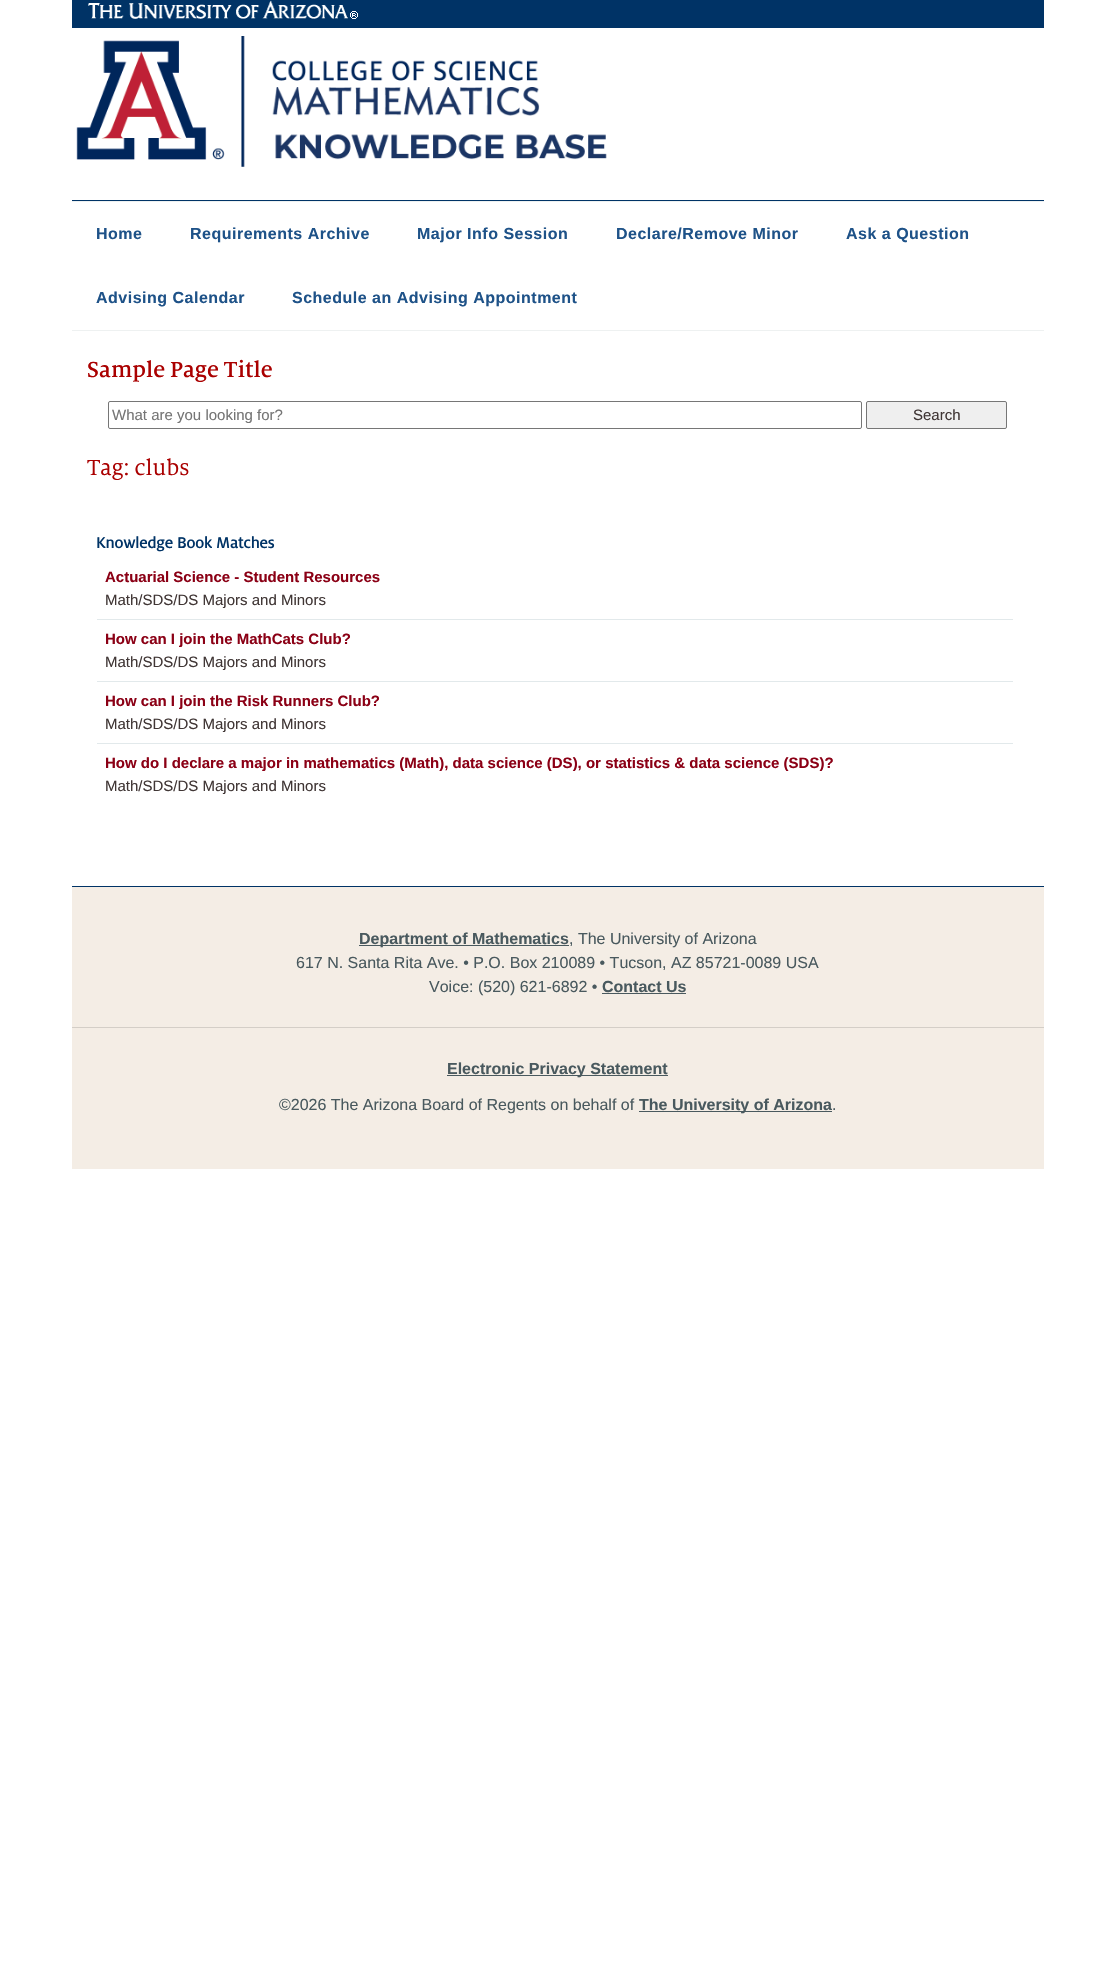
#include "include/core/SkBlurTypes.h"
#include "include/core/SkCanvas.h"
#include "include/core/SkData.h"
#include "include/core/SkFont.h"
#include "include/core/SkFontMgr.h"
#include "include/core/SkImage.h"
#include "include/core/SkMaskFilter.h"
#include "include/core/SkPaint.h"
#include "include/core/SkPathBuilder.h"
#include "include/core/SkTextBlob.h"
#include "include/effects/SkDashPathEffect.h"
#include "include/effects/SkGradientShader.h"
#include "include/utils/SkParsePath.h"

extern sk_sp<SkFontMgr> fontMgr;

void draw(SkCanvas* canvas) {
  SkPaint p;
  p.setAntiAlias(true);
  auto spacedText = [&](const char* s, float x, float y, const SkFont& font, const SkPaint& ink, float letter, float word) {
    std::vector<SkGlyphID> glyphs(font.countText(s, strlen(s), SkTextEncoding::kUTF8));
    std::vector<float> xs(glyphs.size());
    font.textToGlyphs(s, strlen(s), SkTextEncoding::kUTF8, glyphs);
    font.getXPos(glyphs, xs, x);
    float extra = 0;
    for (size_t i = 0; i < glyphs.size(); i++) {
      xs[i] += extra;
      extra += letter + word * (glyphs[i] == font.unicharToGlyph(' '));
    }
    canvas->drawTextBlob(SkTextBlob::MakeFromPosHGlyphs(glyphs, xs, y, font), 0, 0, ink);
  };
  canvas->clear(SK_ColorWHITE);
  p.setColor(SkColorSetRGB(0, 51, 102));
  canvas->drawRect(SkRect::MakeLTRB(72, 0, 1044, 28), p);
  canvas->drawImageRect(SkImages::DeferredFromEncodedData(SkData::MakeFromFileName("images/1.png")), SkRect::MakeLTRB(88, 0, 358, 19), SkSamplingOptions());
  canvas->drawRect(SkRect::MakeLTRB(72, 200, 1044, 201), p);
  canvas->drawImageRect(SkImages::DeferredFromEncodedData(SkData::MakeFromFileName("images/2.png")), SkRect::MakeLTRB(76, 36, 607, 167), SkSamplingOptions());
  p.setColor(SkColorSetRGB(238, 241, 241));
  canvas->drawRect(SkRect::MakeLTRB(72, 201, 1044, 202), p);
  canvas->drawRect(SkRect::MakeLTRB(72, 330, 1044, 331), p);
  p.setStyle(SkPaint::kStroke_Style);
  p.setStrokeWidth(1);
  p.setColor(SkColorSetRGB(118, 118, 118));
  canvas->drawRoundRect(SkRect::MakeLTRB(108.5f, 401.5f, 861.5f, 428.5f), 1.5f, 1.5f, p);
  p.setStyle(SkPaint::kFill_Style);
  p.setColor(SkColorSetRGB(239, 239, 239));
  canvas->drawRoundRect(SkRect::MakeLTRB(866.5f, 401.5f, 1006.5f, 428.5f), 1.5f, 1.5f, p);
  p.setStyle(SkPaint::kStroke_Style);
  p.setColor(SkColorSetRGB(118, 118, 118));
  canvas->drawRoundRect(SkRect::MakeLTRB(866.5f, 401.5f, 1006.5f, 428.5f), 1.5f, 1.5f, p);
  p.setStyle(SkPaint::kFill_Style);
  p.setColor(SkColorSetRGB(226, 233, 235));
  canvas->drawRect(SkRect::MakeLTRB(96, 619, 1013, 620), p);
  p.setColor(SK_ColorWHITE);
  canvas->drawRect(SkRect::MakeLTRB(96, 619, 97, 620), p);
  p.setColor(SkColorSetRGB(226, 233, 235));
  canvas->drawRect(SkRect::MakeLTRB(96, 681, 1013, 682), p);
  p.setColor(SK_ColorWHITE);
  canvas->drawRect(SkRect::MakeLTRB(96, 681, 97, 682), p);
  p.setColor(SkColorSetRGB(226, 233, 235));
  canvas->drawRect(SkRect::MakeLTRB(96, 743, 1013, 744), p);
  p.setColor(SK_ColorWHITE);
  canvas->drawRect(SkRect::MakeLTRB(96, 743, 97, 744), p);
  p.setColor(SkColorSetRGB(244, 237, 229));
  canvas->drawRect(SkRect::MakeLTRB(72, 887, 1044, 1169), p);
  p.setColor(SkColorSetRGB(0, 51, 102));
  canvas->drawRect(SkRect::MakeLTRB(72, 886, 1044, 887), p);
  p.setColor(SkColorSetRGB(73, 89, 94));
  canvas->drawRect(SkRect::MakeLTRB(359, 945, 569, 946), p);
  canvas->drawRect(SkRect::MakeLTRB(602, 993, 686, 994), p);
  p.setColor(SkColorSetRGB(212, 206, 199));
  canvas->drawRect(SkRect::MakeLTRB(72, 1027, 1044, 1028), p);
  p.setColor(SkColorSetRGB(73, 89, 94));
  canvas->drawRect(SkRect::MakeLTRB(447, 1075, 668, 1076), p);
  canvas->drawRect(SkRect::MakeLTRB(639, 1111, 832, 1112), p);
  SkFont font1(fontMgr->matchFamilyStyle("Liberation Sans", SkFontStyle::Bold()), 16);
  font1.setSubpixel(true);
  p.setColor(SkColorSetRGB(30, 82, 136));
  spacedText("Home", 96, 239, font1, p, 0.5f, 0);
  spacedText("Requirements Archive", 190, 239, font1, p, 0.5f, 0);
  spacedText("Major Info Session", 417, 239, font1, p, 0.5f, 0);
  spacedText("Declare/Remove Minor", 616, 239, font1, p, 0.5f, 0);
  spacedText("Ask a Question", 846, 239, font1, p, 0.5f, 0);
  spacedText("Advising Calendar", 96, 303, font1, p, 0.5f, 0);
  spacedText("Schedule an Advising Appointment", 292, 303, font1, p, 0.5f, 0);
  SkFont font2(fontMgr->matchFamilyStyle("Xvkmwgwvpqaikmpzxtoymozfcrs", SkFontStyle(500, SkFontStyle::kNormal_Width, SkFontStyle::kUpright_Slant)), 24);
  font2.setSubpixel(true);
  p.setColor(SkColorSetRGB(170, 0, 0));
  canvas->drawString("Sample Page Title", 87, 377, font2, p);
  SkFont font3(fontMgr->matchFamilyStyle("Liberation Sans", SkFontStyle::Normal()), 15);
  font3.setSubpixel(true);
  p.setColor(SkColorSetRGB(117, 117, 117));
  canvas->drawString("What are you looking for?", 112, 420, font3, p);
  p.setColor(SkColorSetRGB(64, 54, 53));
  canvas->drawString("Search", 913, 420, font3, p);
  SkFont font4(fontMgr->matchFamilyStyle("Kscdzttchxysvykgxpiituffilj", SkFontStyle::Normal()), 24);
  font4.setSubpixel(true);
  p.setColor(SkColorSetRGB(170, 0, 0));
  canvas->drawString("Tag: clubs", 87, 475, font4, p);
  SkFont font5(fontMgr->matchFamilyStyle("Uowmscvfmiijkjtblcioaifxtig", SkFontStyle(500, SkFontStyle::kNormal_Width, SkFontStyle::kUpright_Slant)), 17.25f);
  font5.setSubpixel(true);
  p.setColor(SkColorSetRGB(0, 51, 102));
  spacedText("Knowledge Book Matches", 96, 548, font5, p, -0.25f, 0);
  SkFont font6(fontMgr->matchFamilyStyle("Liberation Sans", SkFontStyle::Bold()), 15);
  font6.setSubpixel(true);
  p.setColor(SkColorSetRGB(139, 0, 21));
  canvas->drawString("Actuarial Science - Student Resources", 105, 582, font6, p);
  p.setColor(SkColorSetRGB(64, 54, 53));
  canvas->drawString("Math/SDS/DS Majors and Minors", 105, 605, font3, p);
  p.setColor(SkColorSetRGB(139, 0, 21));
  canvas->drawString("How can I join the MathCats Club?", 105, 644, font6, p);
  p.setColor(SkColorSetRGB(64, 54, 53));
  canvas->drawString("Math/SDS/DS Majors and Minors", 105, 667, font3, p);
  p.setColor(SkColorSetRGB(139, 0, 21));
  canvas->drawString("How can I join the Risk Runners Club?", 105, 706, font6, p);
  p.setColor(SkColorSetRGB(64, 54, 53));
  canvas->drawString("Math/SDS/DS Majors and Minors", 105, 729, font3, p);
  p.setColor(SkColorSetRGB(139, 0, 21));
  canvas->drawString("How do I declare a major in mathematics (Math), data science (DS), or statistics & data science (SDS)?", 105, 768, font6, p);
  p.setColor(SkColorSetRGB(64, 54, 53));
  canvas->drawString("Math/SDS/DS Majors and Minors", 105, 791, font3, p);
  p.setColor(SkColorSetRGB(73, 89, 94));
  canvas->drawString("Department of Mathematics", 359, 944, font1, p);
  SkFont font7(fontMgr->matchFamilyStyle("Liberation Sans", SkFontStyle::Normal()), 16);
  font7.setSubpixel(true);
  canvas->drawString(", The University of Arizona", 569, 944, font7, p);
  canvas->drawString("617 N. Santa Rita Ave. • P.O. Box 210089 • Tucson, AZ 85721-0089 USA", 296, 968, font7, p);
  canvas->drawString("Voice: (520) 621-6892 •", 429, 992, font7, p);
  canvas->drawString("Contact Us", 602, 992, font1, p);
  canvas->drawString("Electronic Privacy Statement", 447, 1074, font1, p);
  canvas->drawString("©2026 The Arizona Board of Regents on behalf of", 279, 1110, font7, p);
  canvas->drawString("The University of Arizona", 639, 1110, font1, p);
  canvas->drawString(".", 832, 1110, font7, p);
}
